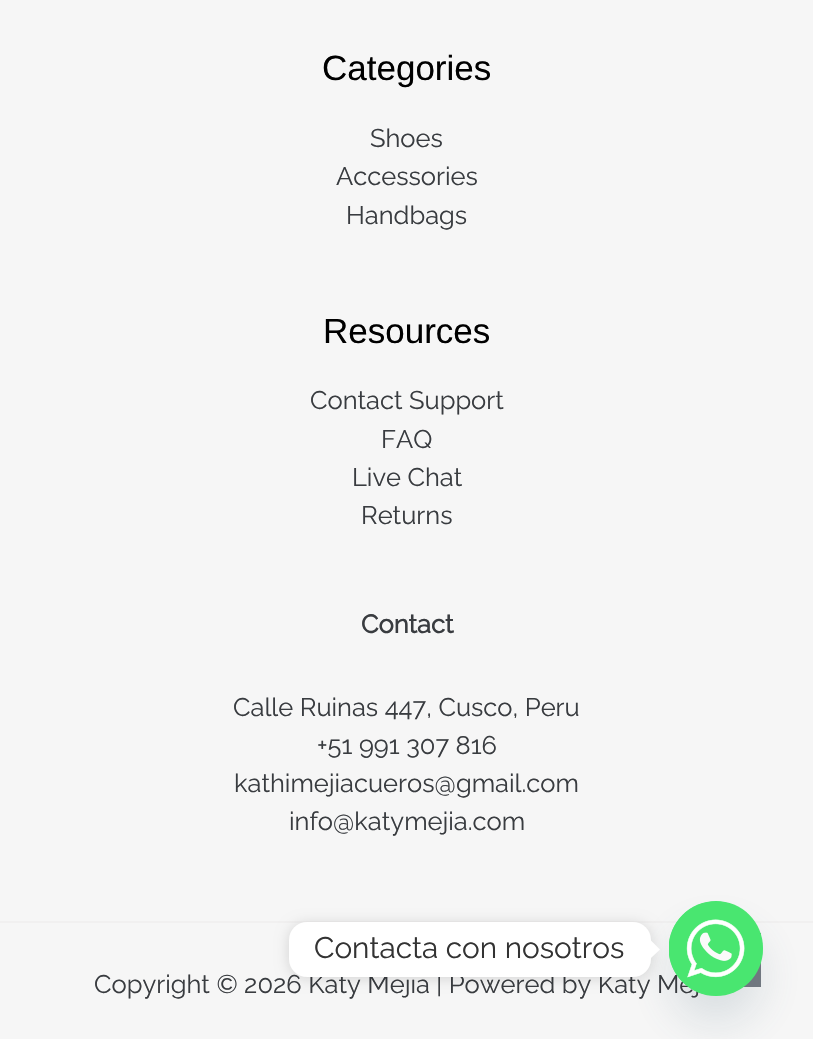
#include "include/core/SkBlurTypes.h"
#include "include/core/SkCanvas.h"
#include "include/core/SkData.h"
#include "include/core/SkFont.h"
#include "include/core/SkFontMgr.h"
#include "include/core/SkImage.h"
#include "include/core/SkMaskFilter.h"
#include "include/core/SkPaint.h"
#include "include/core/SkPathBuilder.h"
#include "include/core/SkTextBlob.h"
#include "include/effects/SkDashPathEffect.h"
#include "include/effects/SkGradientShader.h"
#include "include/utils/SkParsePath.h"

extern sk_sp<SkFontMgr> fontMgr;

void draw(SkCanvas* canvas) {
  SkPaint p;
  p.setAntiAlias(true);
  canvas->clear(SkColorSetRGB(246, 246, 246));
  p.setColor(SkColorSetRGB(241, 240, 240));
  canvas->drawRect(SkRect::MakeLTRB(0, 921, 813, 923), p);
  p.setColor(SkColorSetRGB(115, 120, 128));
  canvas->drawRect(SkRect::MakeLTRB(743, 933, 761, 987), p);
  p.setColor(SkColorSetARGB(41, 73, 104, 126));
  p.setMaskFilter(SkMaskFilter::MakeBlur(kNormal_SkBlurStyle, 21));
  canvas->drawRoundRect(SkRect::MakeLTRB(669, 929, 763, 1024), 47, 47, p);
  p.setMaskFilter(nullptr);
  SkFont font1(fontMgr->matchFamilyStyle("Liberation Sans", SkFontStyle::Normal()), 35);
  font1.setSubpixel(true);
  p.setColor(SK_ColorBLACK);
  canvas->drawString("Categories", 322, 80, font1, p);
  SkFont font2(fontMgr->matchFamilyStyle("Raleway", SkFontStyle(100, SkFontStyle::kNormal_Width, SkFontStyle::kUpright_Slant)), 25.5f);
  font2.setSubpixel(true);
  p.setColor(SkColorSetRGB(57, 60, 64));
  canvas->drawString("Shoes", 370, 147, font2, p);
  canvas->drawString("Accessories", 336, 185, font2, p);
  canvas->drawString("Handbags", 346, 224, font2, p);
  p.setColor(SK_ColorBLACK);
  canvas->drawString("Resources", 323, 343, font1, p);
  p.setColor(SkColorSetRGB(57, 60, 64));
  canvas->drawString("Contact Support", 310, 409, font2, p);
  canvas->drawString("FAQ", 381, 448, font2, p);
  canvas->drawString("Live Chat", 352, 486, font2, p);
  canvas->drawString("Returns", 361, 524, font2, p);
  SkFont font3(fontMgr->matchFamilyStyle("Raleway", SkFontStyle::Bold()), 25.5f);
  font3.setSubpixel(true);
  canvas->drawString("Contact", 361, 633, font3, p);
  canvas->drawString("Calle Ruinas 447, Cusco, Peru", 233, 716, font2, p);
  canvas->drawString("+51 991 307 816", 317, 754, font2, p);
  canvas->drawString("kathimejiacueros@gmail.com", 234, 792, font2, p);
  canvas->drawString("info@katymejia.com", 289, 830, font2, p);
  canvas->drawString("Copyright © 2026 Katy Mejia | Powered by Katy Mej", 94, 993, font2, p);
  p.setColor(SkColorSetRGB(73, 230, 112));
  canvas->drawRoundRect(SkRect::MakeLTRB(669, 901, 763, 996), 47, 47, p);
  canvas->drawImageRect(SkImages::DeferredFromEncodedData(SkData::MakeFromFileName("images/1.png")), SkRect::MakeLTRB(669, 901, 763, 996), SkSamplingOptions());
  p.setColor(SkColorSetARGB(38, 0, 0, 0));
  p.setMaskFilter(SkMaskFilter::MakeBlur(kNormal_SkBlurStyle, 7));
  canvas->drawRoundRect(SkRect::MakeLTRB(289, 924, 651, 978), 18, 18, p);
  p.setMaskFilter(nullptr);
  p.setColor(SK_ColorWHITE);
  canvas->drawPath(SkPathBuilder().moveTo(651, 958).lineTo(651, 940.5f).lineTo(660, 949.5f).close().detach(), p);
  canvas->drawRoundRect(SkRect::MakeLTRB(289, 922, 651, 977), 18, 18, p);
  SkFont font4(fontMgr->matchFamilyStyle("Raleway", SkFontStyle(100, SkFontStyle::kNormal_Width, SkFontStyle::kUpright_Slant)), 29.75f);
  font4.setSubpixel(true);
  p.setColor(SkColorSetRGB(51, 51, 51));
  canvas->drawString("Contacta con nosotros", 314, 958, font4, p);
}
